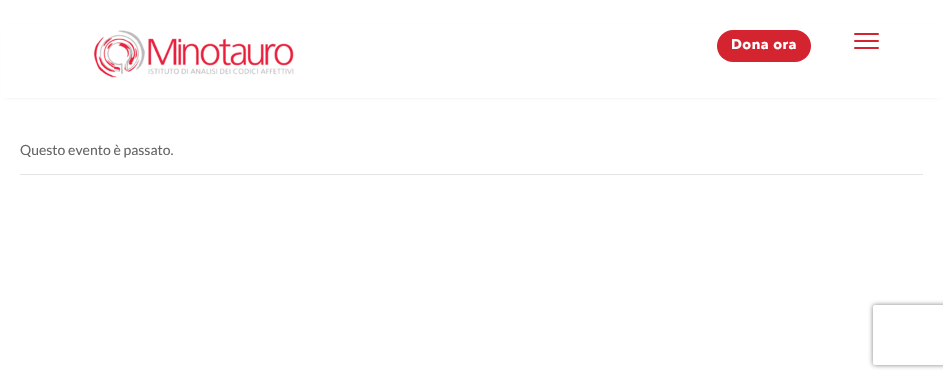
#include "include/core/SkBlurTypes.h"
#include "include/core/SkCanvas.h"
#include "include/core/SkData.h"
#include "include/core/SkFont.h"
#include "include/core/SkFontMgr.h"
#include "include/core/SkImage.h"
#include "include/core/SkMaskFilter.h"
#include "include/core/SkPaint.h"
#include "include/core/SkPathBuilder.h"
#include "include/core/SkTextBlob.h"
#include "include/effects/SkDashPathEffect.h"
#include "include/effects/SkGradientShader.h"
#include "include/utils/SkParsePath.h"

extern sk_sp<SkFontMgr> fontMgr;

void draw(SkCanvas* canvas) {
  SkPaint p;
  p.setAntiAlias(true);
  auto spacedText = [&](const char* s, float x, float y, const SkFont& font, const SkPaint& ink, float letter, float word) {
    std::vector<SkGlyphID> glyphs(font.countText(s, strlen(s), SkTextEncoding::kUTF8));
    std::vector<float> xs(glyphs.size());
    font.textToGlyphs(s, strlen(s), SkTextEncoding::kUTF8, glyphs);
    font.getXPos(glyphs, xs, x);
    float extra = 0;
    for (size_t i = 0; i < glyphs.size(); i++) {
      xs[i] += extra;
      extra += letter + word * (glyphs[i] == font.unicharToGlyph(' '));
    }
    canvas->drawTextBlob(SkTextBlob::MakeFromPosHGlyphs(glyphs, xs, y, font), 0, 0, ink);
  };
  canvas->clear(SK_ColorWHITE);
  p.setColor(SkColorSetARGB(77, 0, 0, 0));
  p.setMaskFilter(SkMaskFilter::MakeBlur(kNormal_SkBlurStyle, 2.5f));
  canvas->drawRect(SkRect::MakeLTRB(6, 29, 937, 95), p);
  p.setMaskFilter(nullptr);
  p.setColor(SK_ColorWHITE);
  canvas->drawRect(SkRect::MakeLTRB(1, 24, 942, 98), p);
  canvas->drawImageRect(SkImages::DeferredFromEncodedData(SkData::MakeFromFileName("images/1.png")), SkRect::MakeLTRB(94, 30, 294, 78), SkSamplingOptions());
  p.setColor(SkColorSetRGB(212, 36, 47));
  canvas->drawRoundRect(SkRect::MakeLTRB(717, 30, 811, 62), 16, 16, p);
  p.setColor(SkColorSetRGB(228, 228, 228));
  canvas->drawRect(SkRect::MakeLTRB(20, 174, 923, 175), p);
  p.setColor(SkColorSetRGB(212, 36, 47));
  canvas->drawRoundRect(SkRect::MakeLTRB(854, 40, 879, 42), 1, 1, p);
  canvas->drawRoundRect(SkRect::MakeLTRB(854, 33, 879, 35), 1, 1, p);
  canvas->drawRoundRect(SkRect::MakeLTRB(854, 47, 879, 49), 1, 1, p);
  canvas->save();
  canvas->clipPath(SkPathBuilder(SkPathFillType::kEvenOdd).moveTo(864, 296).lineTo(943, 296).lineTo(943, 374).lineTo(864, 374).close().moveTo(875, 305).lineTo(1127, 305).cubicTo(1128, 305, 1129, 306, 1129, 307).lineTo(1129, 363).cubicTo(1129, 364, 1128, 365, 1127, 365).lineTo(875, 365).cubicTo(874, 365, 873, 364, 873, 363).lineTo(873, 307).cubicTo(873, 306, 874, 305, 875, 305).close().detach(), true);
  p.setColor(SkColorSetRGB(128, 128, 128));
  p.setMaskFilter(SkMaskFilter::MakeBlur(kNormal_SkBlurStyle, 2.5f));
  canvas->drawRoundRect(SkRect::MakeLTRB(873, 305, 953, 365), 2, 2, p);
  p.setMaskFilter(nullptr);
  canvas->restore();
  SkFont font1(fontMgr->matchFamilyStyle("Avenir Next", SkFontStyle::Bold()), 14);
  font1.setSubpixel(true);
  p.setColor(SK_ColorWHITE);
  spacedText("Dona ora", 731, 49, font1, p, 0.5f, 0);
  SkFont font2(fontMgr->matchFamilyStyle("Lato", SkFontStyle::Normal()), 14);
  font2.setSubpixel(true);
  p.setColor(SkColorSetRGB(102, 102, 102));
  canvas->drawString("Questo evento è passato.", 20, 155, font2, p);
}
